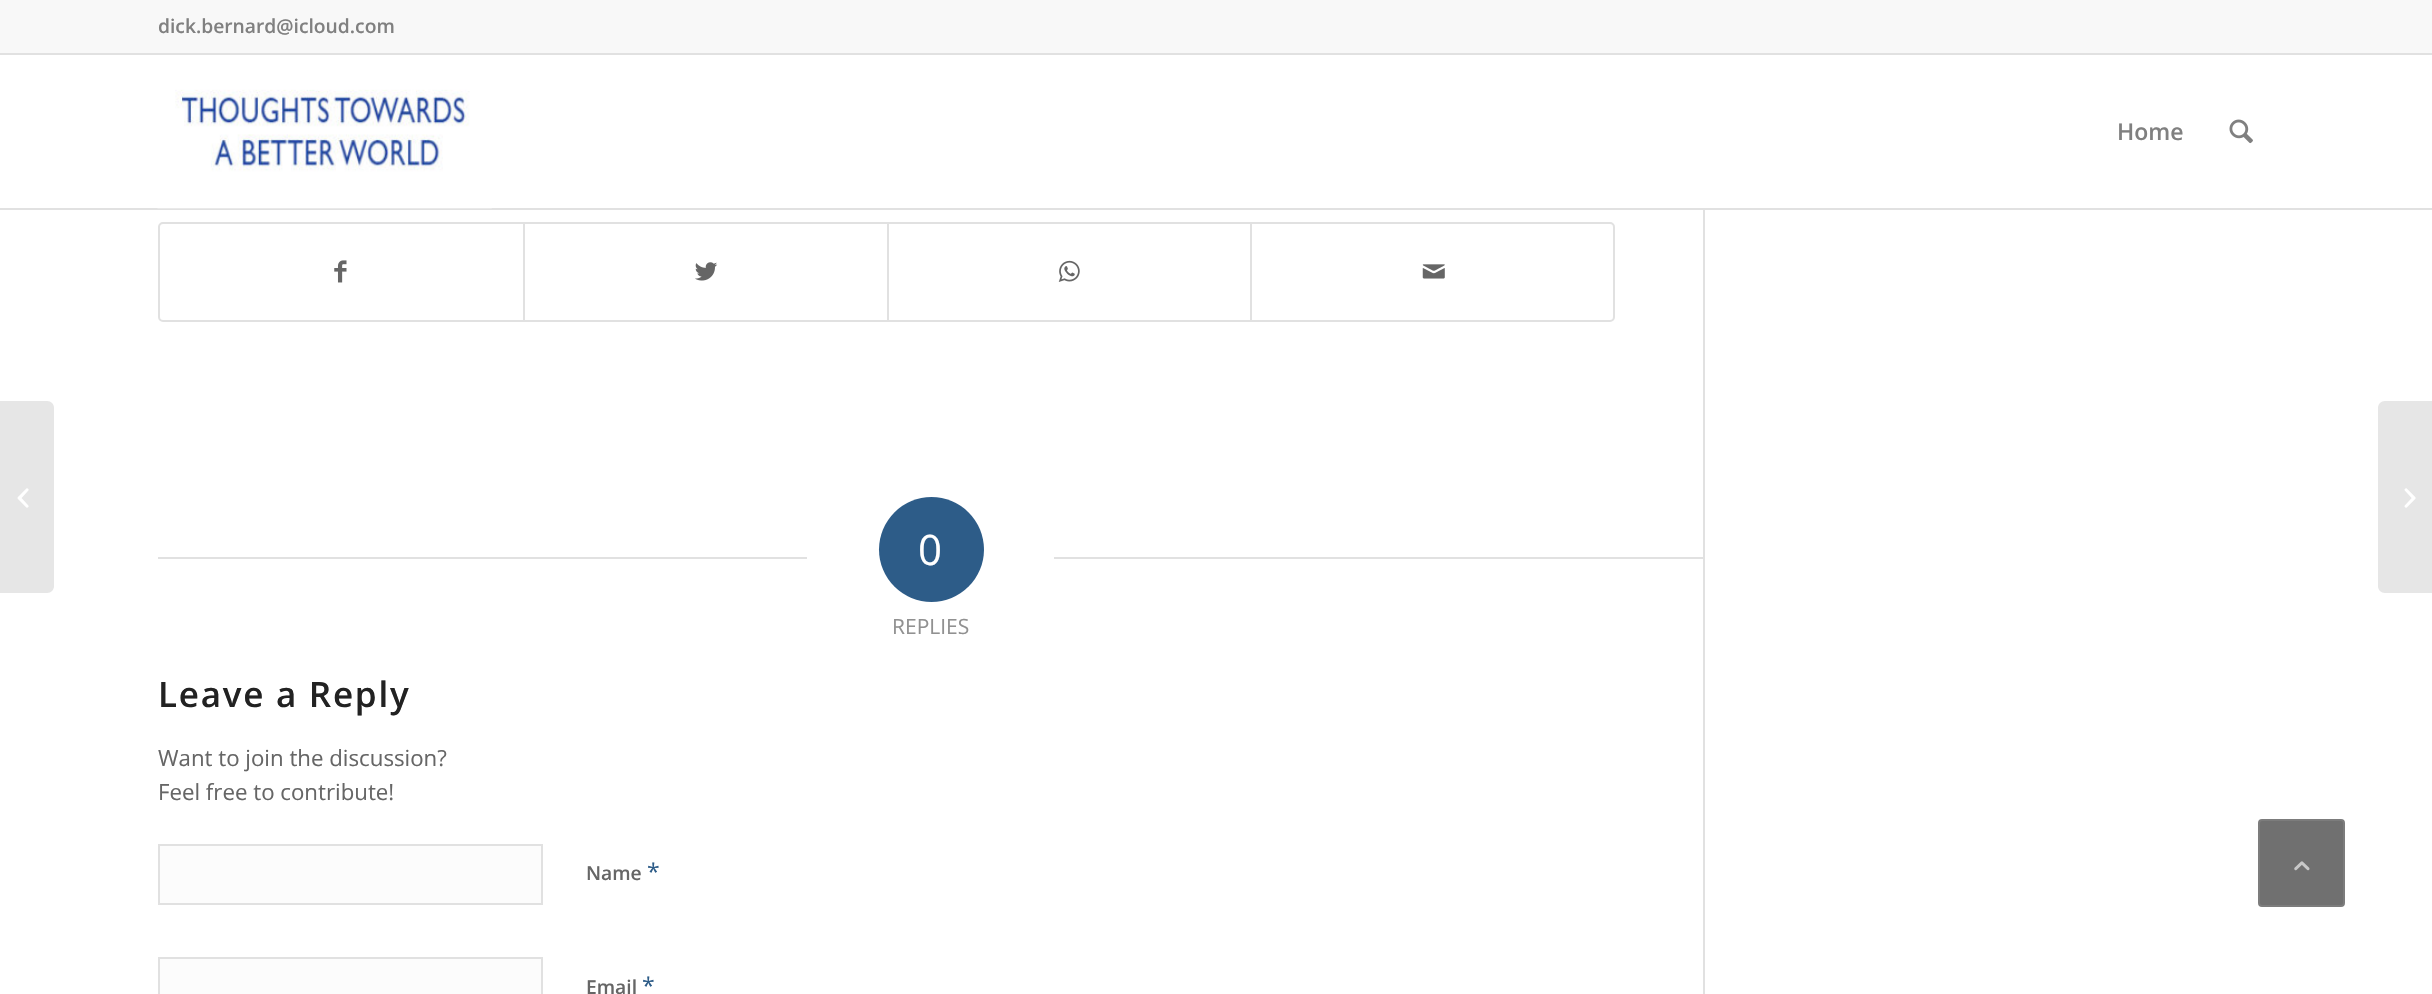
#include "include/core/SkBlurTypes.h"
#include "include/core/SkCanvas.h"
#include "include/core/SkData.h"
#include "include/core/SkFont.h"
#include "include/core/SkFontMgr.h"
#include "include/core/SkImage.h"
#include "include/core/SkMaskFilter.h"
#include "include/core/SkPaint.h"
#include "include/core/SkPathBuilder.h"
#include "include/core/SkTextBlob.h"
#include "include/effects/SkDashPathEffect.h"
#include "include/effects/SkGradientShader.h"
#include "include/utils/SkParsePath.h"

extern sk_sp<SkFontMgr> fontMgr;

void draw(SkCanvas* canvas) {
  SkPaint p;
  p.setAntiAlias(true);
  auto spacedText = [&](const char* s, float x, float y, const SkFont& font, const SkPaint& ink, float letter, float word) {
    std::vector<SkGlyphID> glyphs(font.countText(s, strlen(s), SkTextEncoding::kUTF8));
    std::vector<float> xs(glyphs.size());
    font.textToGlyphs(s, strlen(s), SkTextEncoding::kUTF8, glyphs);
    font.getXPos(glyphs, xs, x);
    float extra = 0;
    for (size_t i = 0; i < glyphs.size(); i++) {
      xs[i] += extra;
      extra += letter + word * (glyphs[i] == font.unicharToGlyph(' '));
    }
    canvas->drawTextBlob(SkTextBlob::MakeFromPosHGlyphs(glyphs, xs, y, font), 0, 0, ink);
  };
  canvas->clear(SK_ColorWHITE);
  p.setColor(SkColorSetRGB(248, 248, 248));
  canvas->drawRect(SkRect::MakeLTRB(0, 0, 2432, 53), p);
  p.setColor(SkColorSetRGB(225, 225, 225));
  canvas->drawRect(SkRect::MakeLTRB(0, 53, 2432, 55), p);
  canvas->drawRect(SkRect::MakeLTRB(0, 208, 2432, 210), p);
  canvas->drawImageRect(SkImages::DeferredFromEncodedData(SkData::MakeFromFileName("images/1.png")), SkRect::MakeLTRB(157, 55, 492, 209), SkSamplingOptions());
  canvas->drawImageRect(SkImages::DeferredFromEncodedData(SkData::MakeFromFileName("images/2.png")), SkRect::MakeLTRB(2229, 119, 2253, 144), SkSamplingOptions());
  p.setColor(SkColorSetRGB(230, 230, 230));
  canvas->drawPath(SkPathBuilder().moveTo(0, 401).lineTo(47, 401).cubicTo(51, 401, 54, 404, 54, 408).lineTo(54, 586).cubicTo(54, 590, 51, 593, 47, 593).lineTo(0, 593).close().detach(), p);
  canvas->drawImageRect(SkImages::DeferredFromEncodedData(SkData::MakeFromFileName("images/3.png")), SkRect::MakeLTRB(17, 488, 29, 508), SkSamplingOptions());
  canvas->drawPath(SkPathBuilder().moveTo(2385, 401).lineTo(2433, 401).lineTo(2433, 593).lineTo(2385, 593).cubicTo(2381, 593, 2378, 590, 2378, 586).lineTo(2378, 408).cubicTo(2378, 404, 2381, 401, 2385, 401).close().detach(), p);
  canvas->drawImageRect(SkImages::DeferredFromEncodedData(SkData::MakeFromFileName("images/4.png")), SkRect::MakeLTRB(2404, 488, 2416, 508), SkSamplingOptions());
  p.setColor(SkColorSetRGB(225, 225, 225));
  canvas->drawRect(SkRect::MakeLTRB(1703, 210, 1705, 994), p);
  p.setStyle(SkPaint::kStroke_Style);
  p.setStrokeWidth(2);
  canvas->drawRoundRect(SkRect::MakeLTRB(159, 223, 1614, 321), 4, 4, p);
  canvas->drawImageRect(SkImages::DeferredFromEncodedData(SkData::MakeFromFileName("images/5.png")), SkRect::MakeLTRB(334, 260, 347, 283), SkSamplingOptions());
  p.setStyle(SkPaint::kFill_Style);
  canvas->drawRect(SkRect::MakeLTRB(523, 224, 525, 320), p);
  canvas->drawImageRect(SkImages::DeferredFromEncodedData(SkData::MakeFromFileName("images/6.png")), SkRect::MakeLTRB(695, 262, 718, 281), SkSamplingOptions());
  canvas->drawRect(SkRect::MakeLTRB(887, 224, 889, 320), p);
  canvas->drawImageRect(SkImages::DeferredFromEncodedData(SkData::MakeFromFileName("images/7.png")), SkRect::MakeLTRB(1058, 260, 1080, 282), SkSamplingOptions());
  canvas->drawRect(SkRect::MakeLTRB(1250, 224, 1252, 320), p);
  canvas->drawImageRect(SkImages::DeferredFromEncodedData(SkData::MakeFromFileName("images/8.png")), SkRect::MakeLTRB(1422, 264, 1445, 279), SkSamplingOptions());
  canvas->drawRect(SkRect::MakeLTRB(158, 557, 807, 559), p);
  p.setColor(SkColorSetRGB(45, 92, 136));
  canvas->drawCircle(931.5f, 549.5f, 52.5f, p);
  p.setColor(SkColorSetRGB(225, 225, 225));
  canvas->drawRect(SkRect::MakeLTRB(1054, 557, 1703, 559), p);
  p.setColor(SkColorSetRGB(252, 252, 252));
  canvas->drawRect(SkRect::MakeLTRB(159, 845, 542, 904), p);
  p.setStyle(SkPaint::kStroke_Style);
  p.setColor(SkColorSetRGB(225, 225, 225));
  canvas->drawRect(SkRect::MakeLTRB(159, 845, 542, 904), p);
  p.setStyle(SkPaint::kFill_Style);
  p.setColor(SkColorSetRGB(252, 252, 252));
  canvas->drawRect(SkRect::MakeLTRB(159, 958, 542, 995), p);
  p.setStyle(SkPaint::kStroke_Style);
  p.setColor(SkColorSetRGB(225, 225, 225));
  canvas->drawRect(SkRect::MakeLTRB(159, 958, 542, 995), p);
  p.setStyle(SkPaint::kFill_Style);
  p.setColor(SkColorSetRGB(112, 112, 112));
  canvas->drawRoundRect(SkRect::MakeLTRB(2259, 820, 2344, 906), 3, 3, p);
  p.setStyle(SkPaint::kStroke_Style);
  p.setColor(SkColorSetRGB(124, 124, 124));
  canvas->drawRoundRect(SkRect::MakeLTRB(2259, 820, 2344, 906), 3, 3, p);
  canvas->drawImageRect(SkImages::DeferredFromEncodedData(SkData::MakeFromFileName("images/9.png")), SkRect::MakeLTRB(2294, 861, 2310, 871), SkSamplingOptions());
  SkFont font1(fontMgr->matchFamilyStyle("Open Sans", SkFontStyle(600, SkFontStyle::kNormal_Width, SkFontStyle::kUpright_Slant)), 19.25f);
  font1.setSubpixel(true);
  p.setStyle(SkPaint::kFill_Style);
  p.setColor(SkColorSetRGB(128, 128, 128));
  canvas->drawString("dick.bernard@icloud.com", 158, 33, font1, p);
  SkFont font2(fontMgr->matchFamilyStyle("Open Sans", SkFontStyle(600, SkFontStyle::kNormal_Width, SkFontStyle::kUpright_Slant)), 23);
  font2.setSubpixel(true);
  canvas->drawString("Home", 2117, 140, font2, p);
  SkFont font3(fontMgr->matchFamilyStyle("Open Sans", SkFontStyle::Normal()), 42);
  font3.setSubpixel(true);
  p.setColor(SK_ColorWHITE);
  canvas->drawString("0", 918, 565, font3, p);
  SkFont font4(fontMgr->matchFamilyStyle("Open Sans", SkFontStyle::Normal()), 21);
  font4.setSubpixel(true);
  p.setColor(SkColorSetRGB(145, 145, 145));
  canvas->drawString("REPLIES", 892, 634, font4, p);
  SkFont font5(fontMgr->matchFamilyStyle("Open Sans", SkFontStyle(600, SkFontStyle::kNormal_Width, SkFontStyle::kUpright_Slant)), 35);
  font5.setSubpixel(true);
  p.setColor(SkColorSetRGB(34, 34, 34));
  spacedText("Leave a Reply", 158, 707, font5, p, 1.75f, 0);
  SkFont font6(fontMgr->matchFamilyStyle("Open Sans", SkFontStyle::Normal()), 22.25f);
  font6.setSubpixel(true);
  p.setColor(SkColorSetRGB(102, 102, 102));
  canvas->drawString("Want to join the discussion?", 158, 766, font6, p);
  canvas->drawString("Feel free to contribute!", 158, 800, font6, p);
  canvas->drawString("Name", 586, 880, font1, p);
  SkFont font7(fontMgr->matchFamilyStyle("Open Sans", SkFontStyle::Normal()), 23);
  font7.setSubpixel(true);
  p.setColor(SkColorSetRGB(45, 92, 136));
  canvas->drawString("*", 647, 880, font7, p);
  p.setColor(SkColorSetRGB(102, 102, 102));
  canvas->drawString("Email", 586, 994, font1, p);
  p.setColor(SkColorSetRGB(45, 92, 136));
  canvas->drawString("*", 642, 994, font7, p);
}
